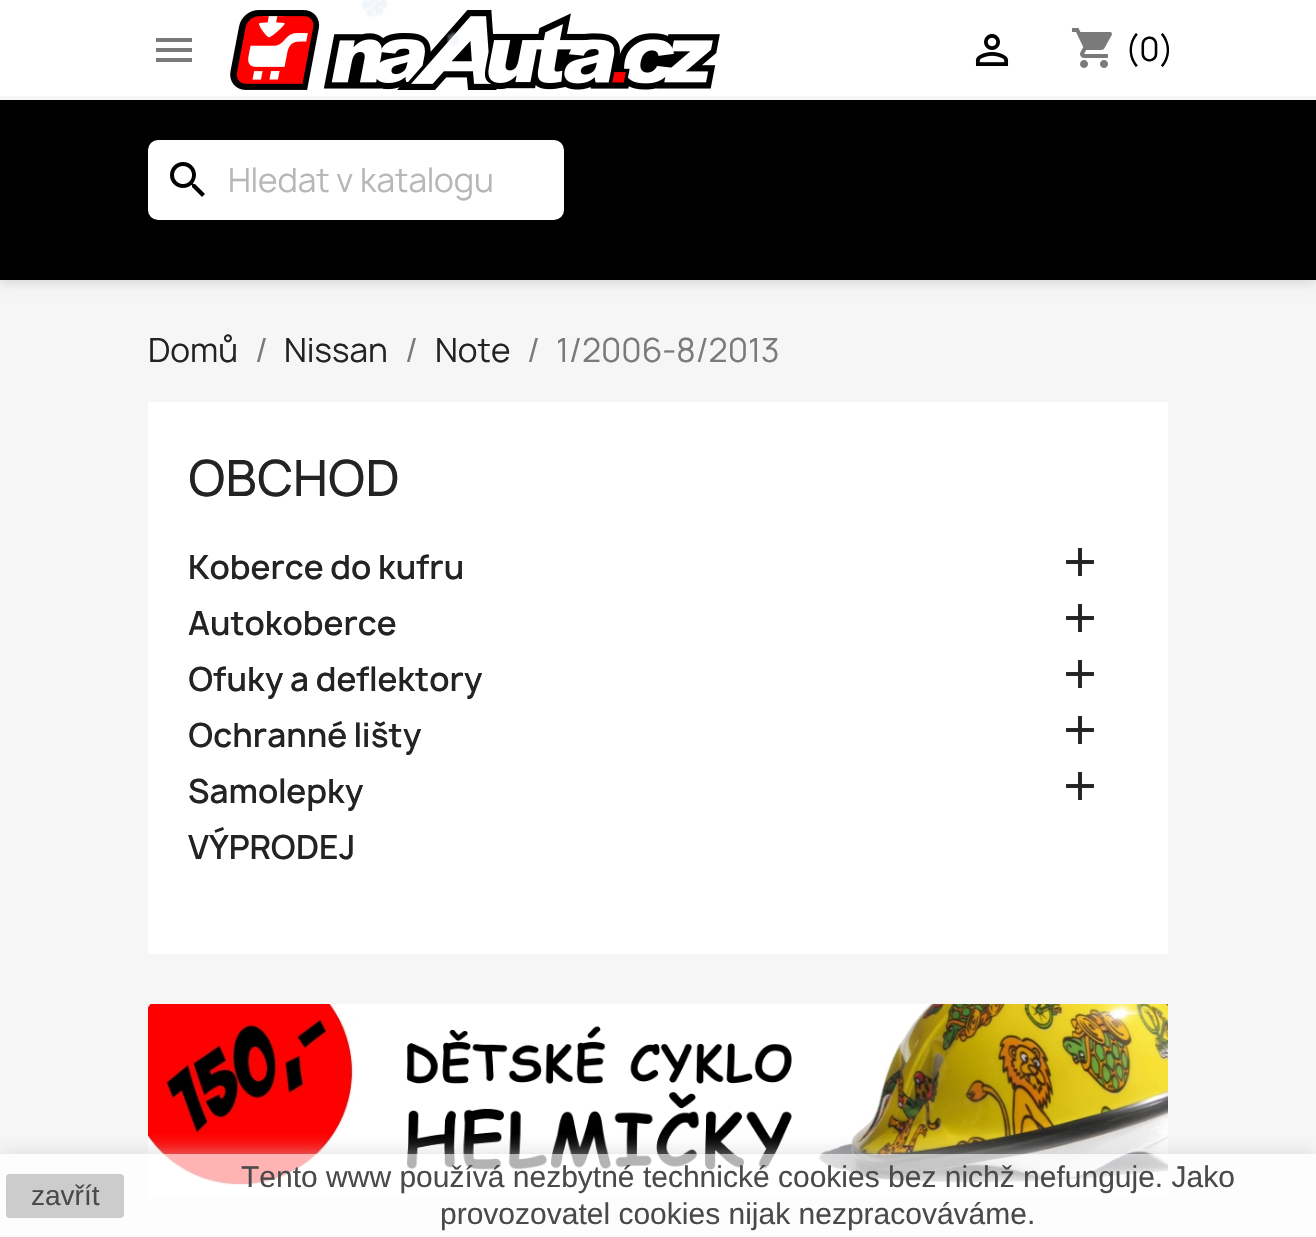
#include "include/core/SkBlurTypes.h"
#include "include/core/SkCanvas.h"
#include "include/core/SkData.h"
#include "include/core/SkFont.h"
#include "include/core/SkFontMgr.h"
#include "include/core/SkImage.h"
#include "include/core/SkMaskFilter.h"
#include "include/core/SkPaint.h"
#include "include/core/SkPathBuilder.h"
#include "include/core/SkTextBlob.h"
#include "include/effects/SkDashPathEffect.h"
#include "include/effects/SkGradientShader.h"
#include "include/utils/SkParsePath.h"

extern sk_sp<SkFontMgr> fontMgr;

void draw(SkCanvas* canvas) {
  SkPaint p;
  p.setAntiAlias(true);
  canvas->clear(SkColorSetRGB(246, 246, 246));
  p.setColor(SkColorSetARGB(28, 0, 0, 0));
  p.setMaskFilter(SkMaskFilter::MakeBlur(kNormal_SkBlurStyle, 5));
  canvas->drawRect(SkRect::MakeLTRB(0, 4, 1316, 284), p);
  p.setMaskFilter(nullptr);
  p.setColor(SK_ColorWHITE);
  canvas->drawRect(SkRect::MakeLTRB(0, 0, 1316, 96), p);
  canvas->drawImageRect(SkImages::DeferredFromEncodedData(SkData::MakeFromFileName("images/2.png")), SkRect::MakeLTRB(230, 10, 720, 90), SkSamplingOptions());
  canvas->drawImageRect(SkImages::DeferredFromEncodedData(SkData::MakeFromFileName("images/1.png")), SkRect::MakeLTRB(361, 0, 460, 46), SkSamplingOptions());
  p.setColor(SK_ColorBLACK);
  canvas->drawRect(SkRect::MakeLTRB(0, 100, 1316, 280), p);
  p.setColor(SkColorSetRGB(246, 246, 246));
  canvas->drawRect(SkRect::MakeLTRB(0, 96, 1316, 100), p);
  p.setColor(SkColorSetRGB(122, 122, 122));
  canvas->drawPath(SkPathBuilder().moveTo(156, 38).lineTo(192, 38).lineTo(192, 42).lineTo(156, 42).close().moveTo(156, 52).lineTo(156, 48).lineTo(192, 48).lineTo(192, 52).close().moveTo(156, 62).lineTo(156, 58).lineTo(192, 58).lineTo(192, 62).close().detach(), p);
  canvas->drawImageRect(SkImages::DeferredFromEncodedData(SkData::MakeFromFileName("images/3.png")), SkRect::MakeLTRB(975, 34, 1009, 66), SkSamplingOptions());
  canvas->drawImageRect(SkImages::DeferredFromEncodedData(SkData::MakeFromFileName("images/4.png")), SkRect::MakeLTRB(1071, 28, 1112, 68), SkSamplingOptions());
  p.setColor(SK_ColorWHITE);
  canvas->drawRoundRect(SkRect::MakeLTRB(148, 140, 564, 220), 10, 10, p);
  canvas->drawImageRect(SkImages::DeferredFromEncodedData(SkData::MakeFromFileName("images/5.png")), SkRect::MakeLTRB(170, 162, 205, 197), SkSamplingOptions());
  canvas->drawRect(SkRect::MakeLTRB(148, 402, 1168, 954), p);
  canvas->drawImageRect(SkImages::DeferredFromEncodedData(SkData::MakeFromFileName("images/6.png")), SkRect::MakeLTRB(1066, 548, 1094, 576), SkSamplingOptions());
  canvas->drawImageRect(SkImages::DeferredFromEncodedData(SkData::MakeFromFileName("images/6.png")), SkRect::MakeLTRB(1066, 604, 1094, 632), SkSamplingOptions());
  canvas->drawImageRect(SkImages::DeferredFromEncodedData(SkData::MakeFromFileName("images/6.png")), SkRect::MakeLTRB(1066, 660, 1094, 688), SkSamplingOptions());
  canvas->drawImageRect(SkImages::DeferredFromEncodedData(SkData::MakeFromFileName("images/6.png")), SkRect::MakeLTRB(1066, 716, 1094, 744), SkSamplingOptions());
  canvas->drawImageRect(SkImages::DeferredFromEncodedData(SkData::MakeFromFileName("images/6.png")), SkRect::MakeLTRB(1066, 772, 1094, 800), SkSamplingOptions());
  canvas->drawImageRect(SkImages::DeferredFromEncodedData(SkData::MakeFromFileName("images/7.png")), SkRect::MakeLTRB(148, 1004, 1168, 1198), SkSamplingOptions());
  canvas->save();
  canvas->clipRect(SkRect::MakeLTRB(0, 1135, 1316, 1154));
  p.setColor(SkColorSetARGB(179, 204, 204, 204));
  p.setMaskFilter(SkMaskFilter::MakeBlur(kNormal_SkBlurStyle, 10));
  canvas->drawRect(SkRect::MakeLTRB(0, 1154, 1316, 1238), p);
  p.setMaskFilter(nullptr);
  canvas->restore();
  p.setColor(SkColorSetARGB(179, 255, 255, 255));
  canvas->drawRect(SkRect::MakeLTRB(0, 1154, 1316, 1237), p);
  p.setColor(SkColorSetRGB(204, 204, 204));
  canvas->drawRoundRect(SkRect::MakeLTRB(6, 1174, 124, 1218), 4, 4, p);
  SkFont font1(fontMgr->matchFamilyStyle("Manrope", SkFontStyle::Normal()), 32);
  font1.setSubpixel(true);
  p.setColor(SK_ColorBLACK);
  canvas->drawString("(0)", 1125, 61, font1, p);
  p.setColor(SkColorSetRGB(183, 183, 183));
  canvas->drawString("Hledat v katalogu", 228, 192, font1, p);
  p.setColor(SkColorSetRGB(35, 35, 35));
  canvas->drawString("Domů", 148, 362, font1, p);
  p.setColor(SkColorSetRGB(122, 122, 122));
  canvas->drawString("/", 255, 362, font1, p);
  p.setColor(SkColorSetRGB(35, 35, 35));
  canvas->drawString("Nissan", 284, 362, font1, p);
  p.setColor(SkColorSetRGB(122, 122, 122));
  canvas->drawString("/", 405, 362, font1, p);
  p.setColor(SkColorSetRGB(35, 35, 35));
  canvas->drawString("Note", 435, 362, font1, p);
  p.setColor(SkColorSetRGB(122, 122, 122));
  canvas->drawString("/", 527, 362, font1, p);
  canvas->drawString("1/2006-8/2013", 556, 362, font1, p);
  SkFont font2(fontMgr->matchFamilyStyle("Manrope", SkFontStyle(500, SkFontStyle::kNormal_Width, SkFontStyle::kUpright_Slant)), 48);
  font2.setSubpixel(true);
  p.setColor(SkColorSetRGB(35, 35, 35));
  canvas->drawString("OBCHOD", 188, 496, font2, p);
  SkFont font3(fontMgr->matchFamilyStyle("Manrope", SkFontStyle(600, SkFontStyle::kNormal_Width, SkFontStyle::kUpright_Slant)), 32);
  font3.setSubpixel(true);
  canvas->drawString("Koberce do kufru", 188, 579, font3, p);
  canvas->drawString("Autokoberce", 188, 635, font3, p);
  canvas->drawString("Ofuky a deflektory", 188, 691, font3, p);
  canvas->drawString("Ochranné lišty", 188, 747, font3, p);
  canvas->drawString("Samolepky", 188, 803, font3, p);
  canvas->drawString("VÝPRODEJ", 188, 859, font3, p);
  SkFont font4(fontMgr->matchFamilyStyle("Liberation Sans", SkFontStyle::Normal()), 28);
  font4.setSubpixel(true);
  p.setColor(SkColorSetRGB(74, 74, 74));
  canvas->drawString("zavřít", 31, 1205, font4, p);
  SkFont font5(fontMgr->matchFamilyStyle("Liberation Sans", SkFontStyle::Normal()), 30);
  font5.setSubpixel(true);
  canvas->drawString("Tento www používá nezbytné technické cookies bez nichž nefunguje. Jako", 241, 1187, font5, p);
  canvas->drawString("provozovatel cookies nijak nezpracováváme.", 440, 1224, font5, p);
}
